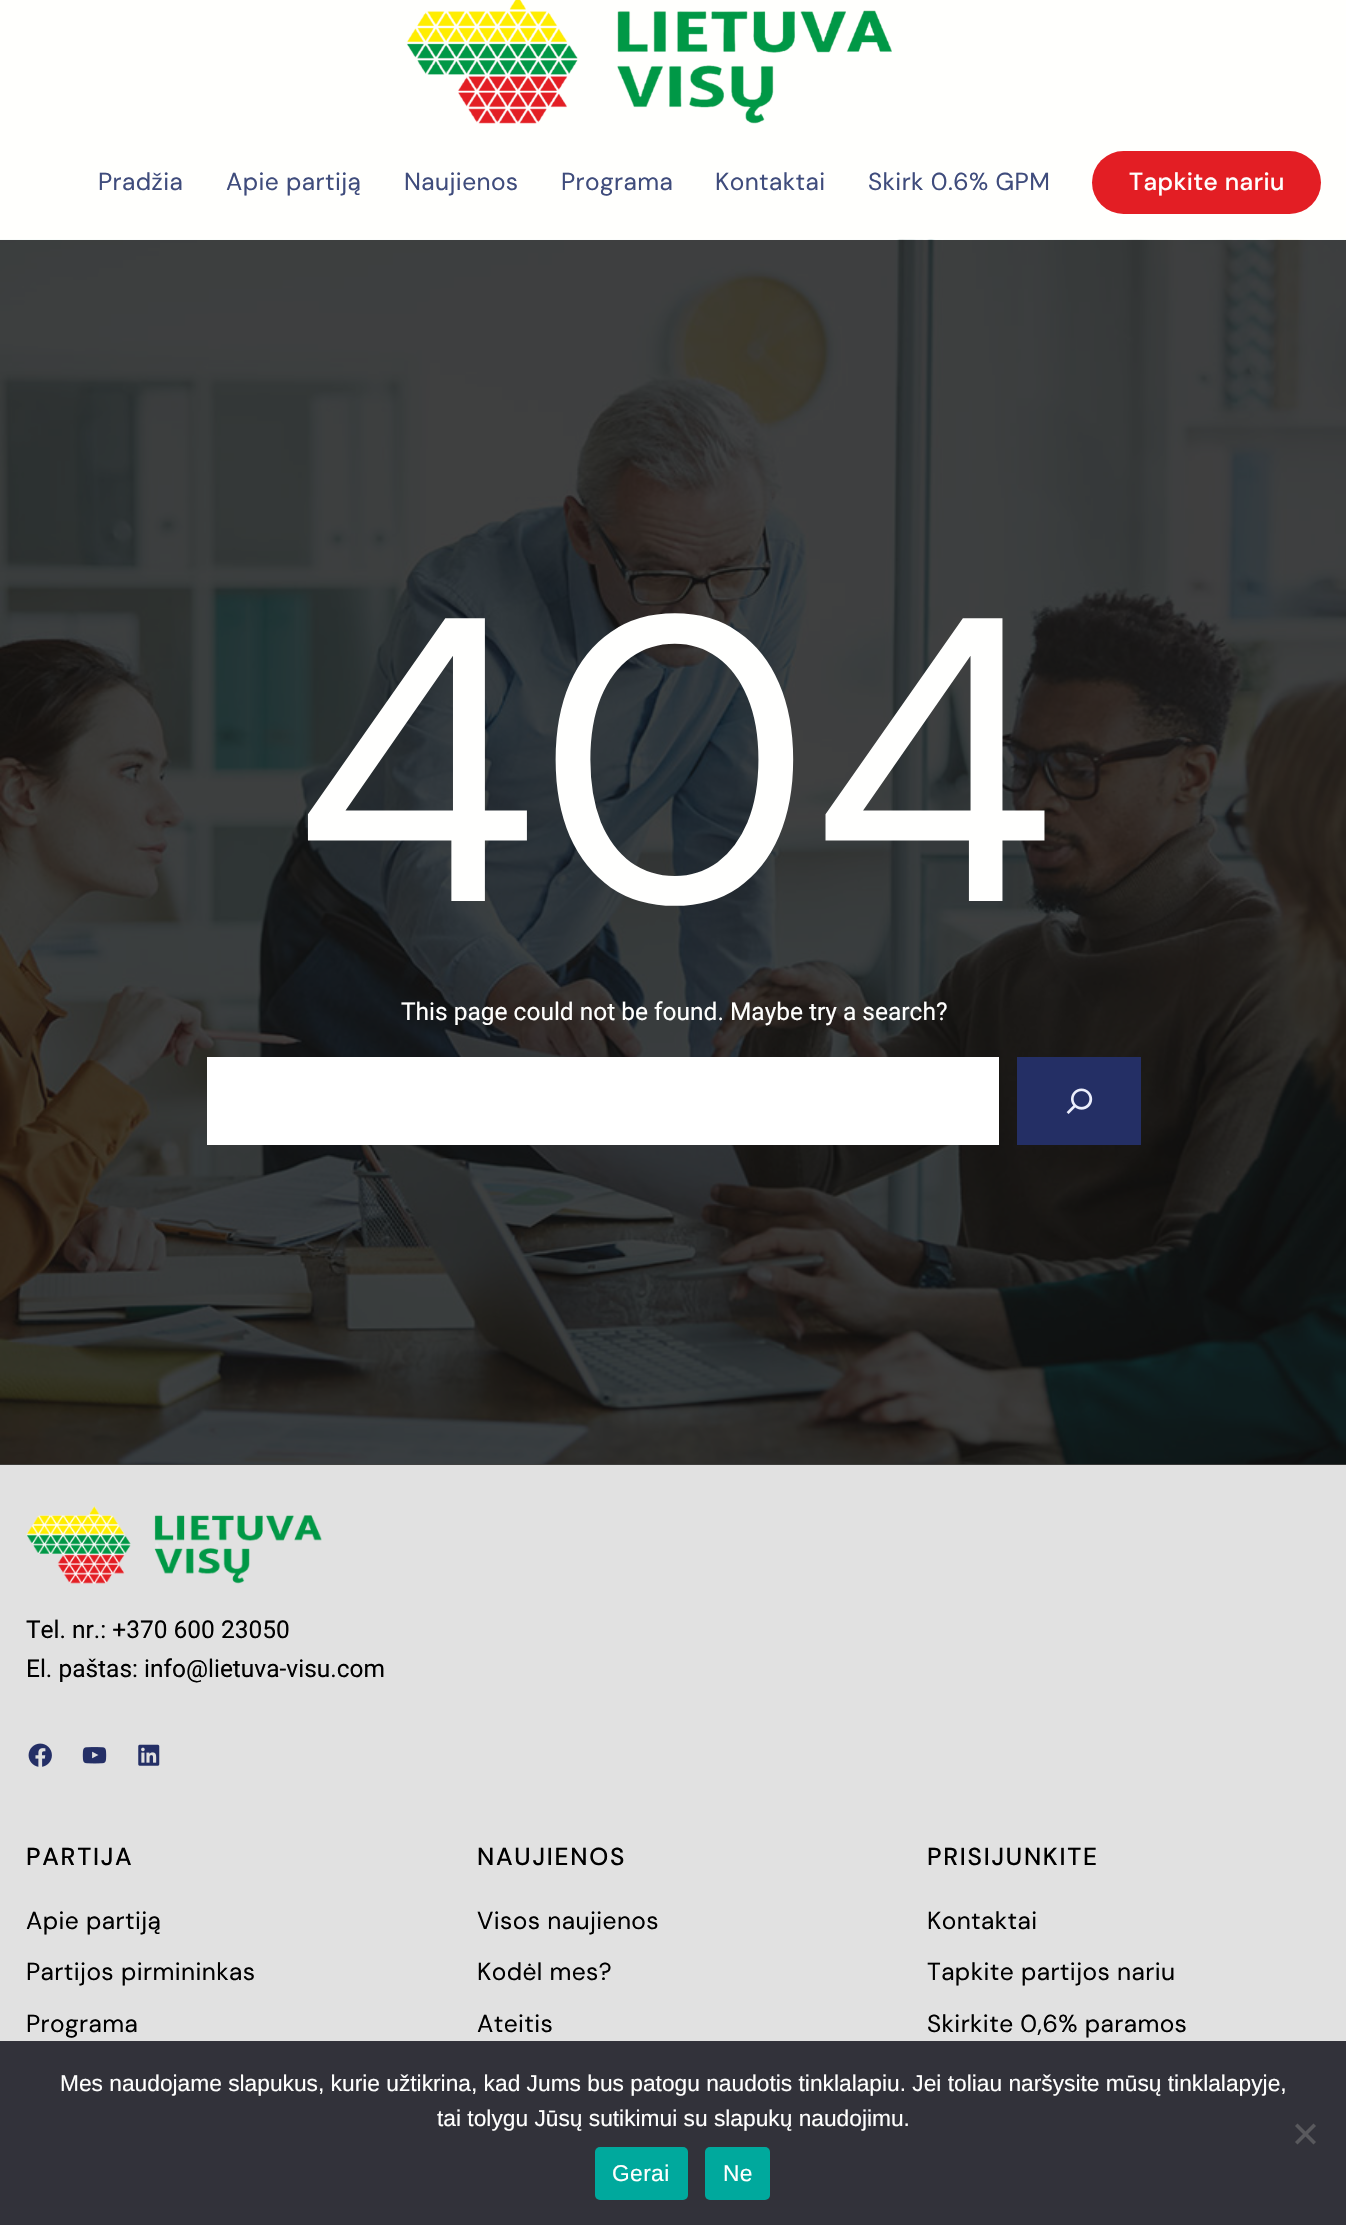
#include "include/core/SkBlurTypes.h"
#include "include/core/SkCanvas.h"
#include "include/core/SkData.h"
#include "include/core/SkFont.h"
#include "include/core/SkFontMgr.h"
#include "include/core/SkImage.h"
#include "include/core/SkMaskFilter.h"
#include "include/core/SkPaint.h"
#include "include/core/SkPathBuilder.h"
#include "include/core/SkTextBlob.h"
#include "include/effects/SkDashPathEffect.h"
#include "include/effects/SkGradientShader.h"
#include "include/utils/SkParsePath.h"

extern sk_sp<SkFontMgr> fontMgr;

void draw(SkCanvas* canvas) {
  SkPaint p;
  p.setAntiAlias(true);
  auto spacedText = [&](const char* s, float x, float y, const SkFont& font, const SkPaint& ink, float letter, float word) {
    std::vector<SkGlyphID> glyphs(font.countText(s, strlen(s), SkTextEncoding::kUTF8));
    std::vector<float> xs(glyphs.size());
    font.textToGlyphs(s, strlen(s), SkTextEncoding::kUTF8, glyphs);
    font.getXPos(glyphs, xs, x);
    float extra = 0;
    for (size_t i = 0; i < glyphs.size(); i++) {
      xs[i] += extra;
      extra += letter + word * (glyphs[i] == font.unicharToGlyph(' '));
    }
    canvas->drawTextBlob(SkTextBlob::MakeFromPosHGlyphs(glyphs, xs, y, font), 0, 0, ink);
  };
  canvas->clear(SkColorSetRGB(255, 255, 253));
  p.setColor(SkColorSetRGB(65, 65, 64));
  canvas->drawRect(SkRect::MakeLTRB(0, 1464, 1346, 1465), p);
  canvas->drawImageRect(SkImages::DeferredFromEncodedData(SkData::MakeFromFileName("images/1.png")), SkRect::MakeLTRB(406, 0, 892, 124), SkSamplingOptions());
  p.setColor(SkColorSetRGB(227, 30, 36));
  canvas->drawRoundRect(SkRect::MakeLTRB(1092, 151, 1321, 214), 31.5f, 31.5f, p);
  canvas->drawImageRect(SkImages::DeferredFromEncodedData(SkData::MakeFromFileName("images/2.png")), SkRect::MakeLTRB(0, 239, 1346, 1465), SkSamplingOptions());
  p.setColor(SK_ColorWHITE);
  canvas->drawRect(SkRect::MakeLTRB(207, 1057, 999, 1145), p);
  p.setColor(SkColorSetRGB(36, 47, 101));
  canvas->drawRect(SkRect::MakeLTRB(1017, 1057, 1141, 1145), p);
  canvas->drawImageRect(SkImages::DeferredFromEncodedData(SkData::MakeFromFileName("images/3.png")), SkRect::MakeLTRB(1066, 1088, 1093, 1114), SkSamplingOptions());
  p.setColor(SkColorSetRGB(225, 225, 225));
  canvas->drawRect(SkRect::MakeLTRB(0, 1465, 1346, 2041), p);
  canvas->drawImageRect(SkImages::DeferredFromEncodedData(SkData::MakeFromFileName("images/4.png")), SkRect::MakeLTRB(26, 1506, 322, 1584), SkSamplingOptions());
  canvas->drawImageRect(SkImages::DeferredFromEncodedData(SkData::MakeFromFileName("images/5.png")), SkRect::MakeLTRB(28, 1743, 52, 1767), SkSamplingOptions());
  canvas->drawImageRect(SkImages::DeferredFromEncodedData(SkData::MakeFromFileName("images/6.png")), SkRect::MakeLTRB(82, 1747, 107, 1764), SkSamplingOptions());
  canvas->drawImageRect(SkImages::DeferredFromEncodedData(SkData::MakeFromFileName("images/7.png")), SkRect::MakeLTRB(138, 1744, 160, 1766), SkSamplingOptions());
  p.setColor(SkColorSetRGB(50, 50, 58));
  canvas->drawRect(SkRect::MakeLTRB(0, 2041, 1346, 2225), p);
  p.setColor(SkColorSetRGB(89, 89, 93));
  canvas->drawPath(SkPathBuilder().moveTo(1313.5f, 2123.5f).lineTo(1316, 2126).lineTo(1297.5f, 2144.5f).lineTo(1295, 2142).close().detach(), p);
  canvas->drawPath(SkPathBuilder().moveTo(1295, 2126).lineTo(1297.5f, 2123.5f).lineTo(1316, 2142).lineTo(1313.5f, 2144.5f).close().detach(), p);
  p.setColor(SkColorSetRGB(0, 169, 157));
  canvas->drawRoundRect(SkRect::MakeLTRB(595, 2147, 688, 2200), 5, 5, p);
  canvas->drawRoundRect(SkRect::MakeLTRB(705, 2147, 770, 2200), 5, 5, p);
  SkFont font1(fontMgr->matchFamilyStyle("DM Sans", SkFontStyle::Normal()), 24.5f);
  font1.setSubpixel(true);
  p.setColor(SkColorSetRGB(63, 76, 124));
  spacedText("Pradžia", 98, 190, font1, p, 0.4f, 0);
  spacedText("Apie partiją", 226, 190, font1, p, 0.4f, 0);
  spacedText("Naujienos", 404, 190, font1, p, 0.4f, 0);
  spacedText("Programa", 561, 190, font1, p, 0.4f, 0);
  spacedText("Kontaktai", 715, 190, font1, p, 0.4f, 0);
  spacedText("Skirk 0.6% GPM", 868, 190, font1, p, 0.4f, 0);
  SkFont font2(fontMgr->matchFamilyStyle("DM Sans", SkFontStyle(500, SkFontStyle::kNormal_Width, SkFontStyle::kUpright_Slant)), 24.5f);
  font2.setSubpixel(true);
  p.setColor(SkColorSetRGB(255, 255, 254));
  spacedText("Tapkite nariu", 1129, 190, font2, p, 0.4f, 0);
  SkFont font3(fontMgr->matchFamilyStyle("DM Sans", SkFontStyle::Normal()), 404);
  font3.setSubpixel(true);
  spacedText("404", 293, 901, font3, p, -2, 0);
  SkFont font4(fontMgr->matchFamilyStyle("Roboto", SkFontStyle::Normal()), 24.5f);
  font4.setSubpixel(true);
  canvas->drawString("This page could not be found. Maybe try a search?", 401, 1020, font4, p);
  p.setColor(SK_ColorBLACK);
  canvas->drawString("Tel. nr.: +370 600 23050", 26, 1638, font4, p);
  canvas->drawString("El. paštas: info@lietuva-visu.com", 26, 1677, font4, p);
  spacedText("PARTIJA", 26, 1865, font2, p, 1.75f, 0);
  spacedText("Apie partiją", 26, 1929, font1, p, 0.4f, 0);
  spacedText("Partijos pirmininkas", 26, 1980, font1, p, 0.4f, 0);
  spacedText("Programa", 26, 2032, font1, p, 0.4f, 0);
  spacedText("NAUJIENOS", 477, 1865, font2, p, 1.75f, 0);
  spacedText("Visos naujienos", 477, 1929, font1, p, 0.4f, 0);
  spacedText("Kodėl mes?", 477, 1980, font1, p, 0.4f, 0);
  spacedText("Ateitis", 477, 2032, font1, p, 0.4f, 0);
  spacedText("PRISIJUNKITE", 927, 1865, font2, p, 1.75f, 0);
  spacedText("Kontaktai", 927, 1929, font1, p, 0.4f, 0);
  spacedText("Tapkite partijos nariu", 927, 1980, font1, p, 0.4f, 0);
  spacedText("Skirkite 0,6% paramos", 927, 2032, font1, p, 0.4f, 0);
  SkFont font5(fontMgr->matchFamilyStyle("Liberation Sans", SkFontStyle::Normal()), 22.75f);
  font5.setSubpixel(true);
  p.setColor(SkColorSetRGB(255, 255, 254));
  canvas->drawString("Mes naudojame slapukus, kurie užtikrina, kad Jums bus patogu naudotis tinklalapiu. Jei toliau naršysite mūsų tinklalapyje,", 60, 2091, font5, p);
  canvas->drawString("tai tolygu Jūsų sutikimui su slapukų naudojimu.", 437, 2126, font5, p);
  spacedText("Gerai", 612, 2181, font5, p, 0.4f, 0);
  spacedText("Ne", 723, 2181, font5, p, 0.4f, 0);
}
